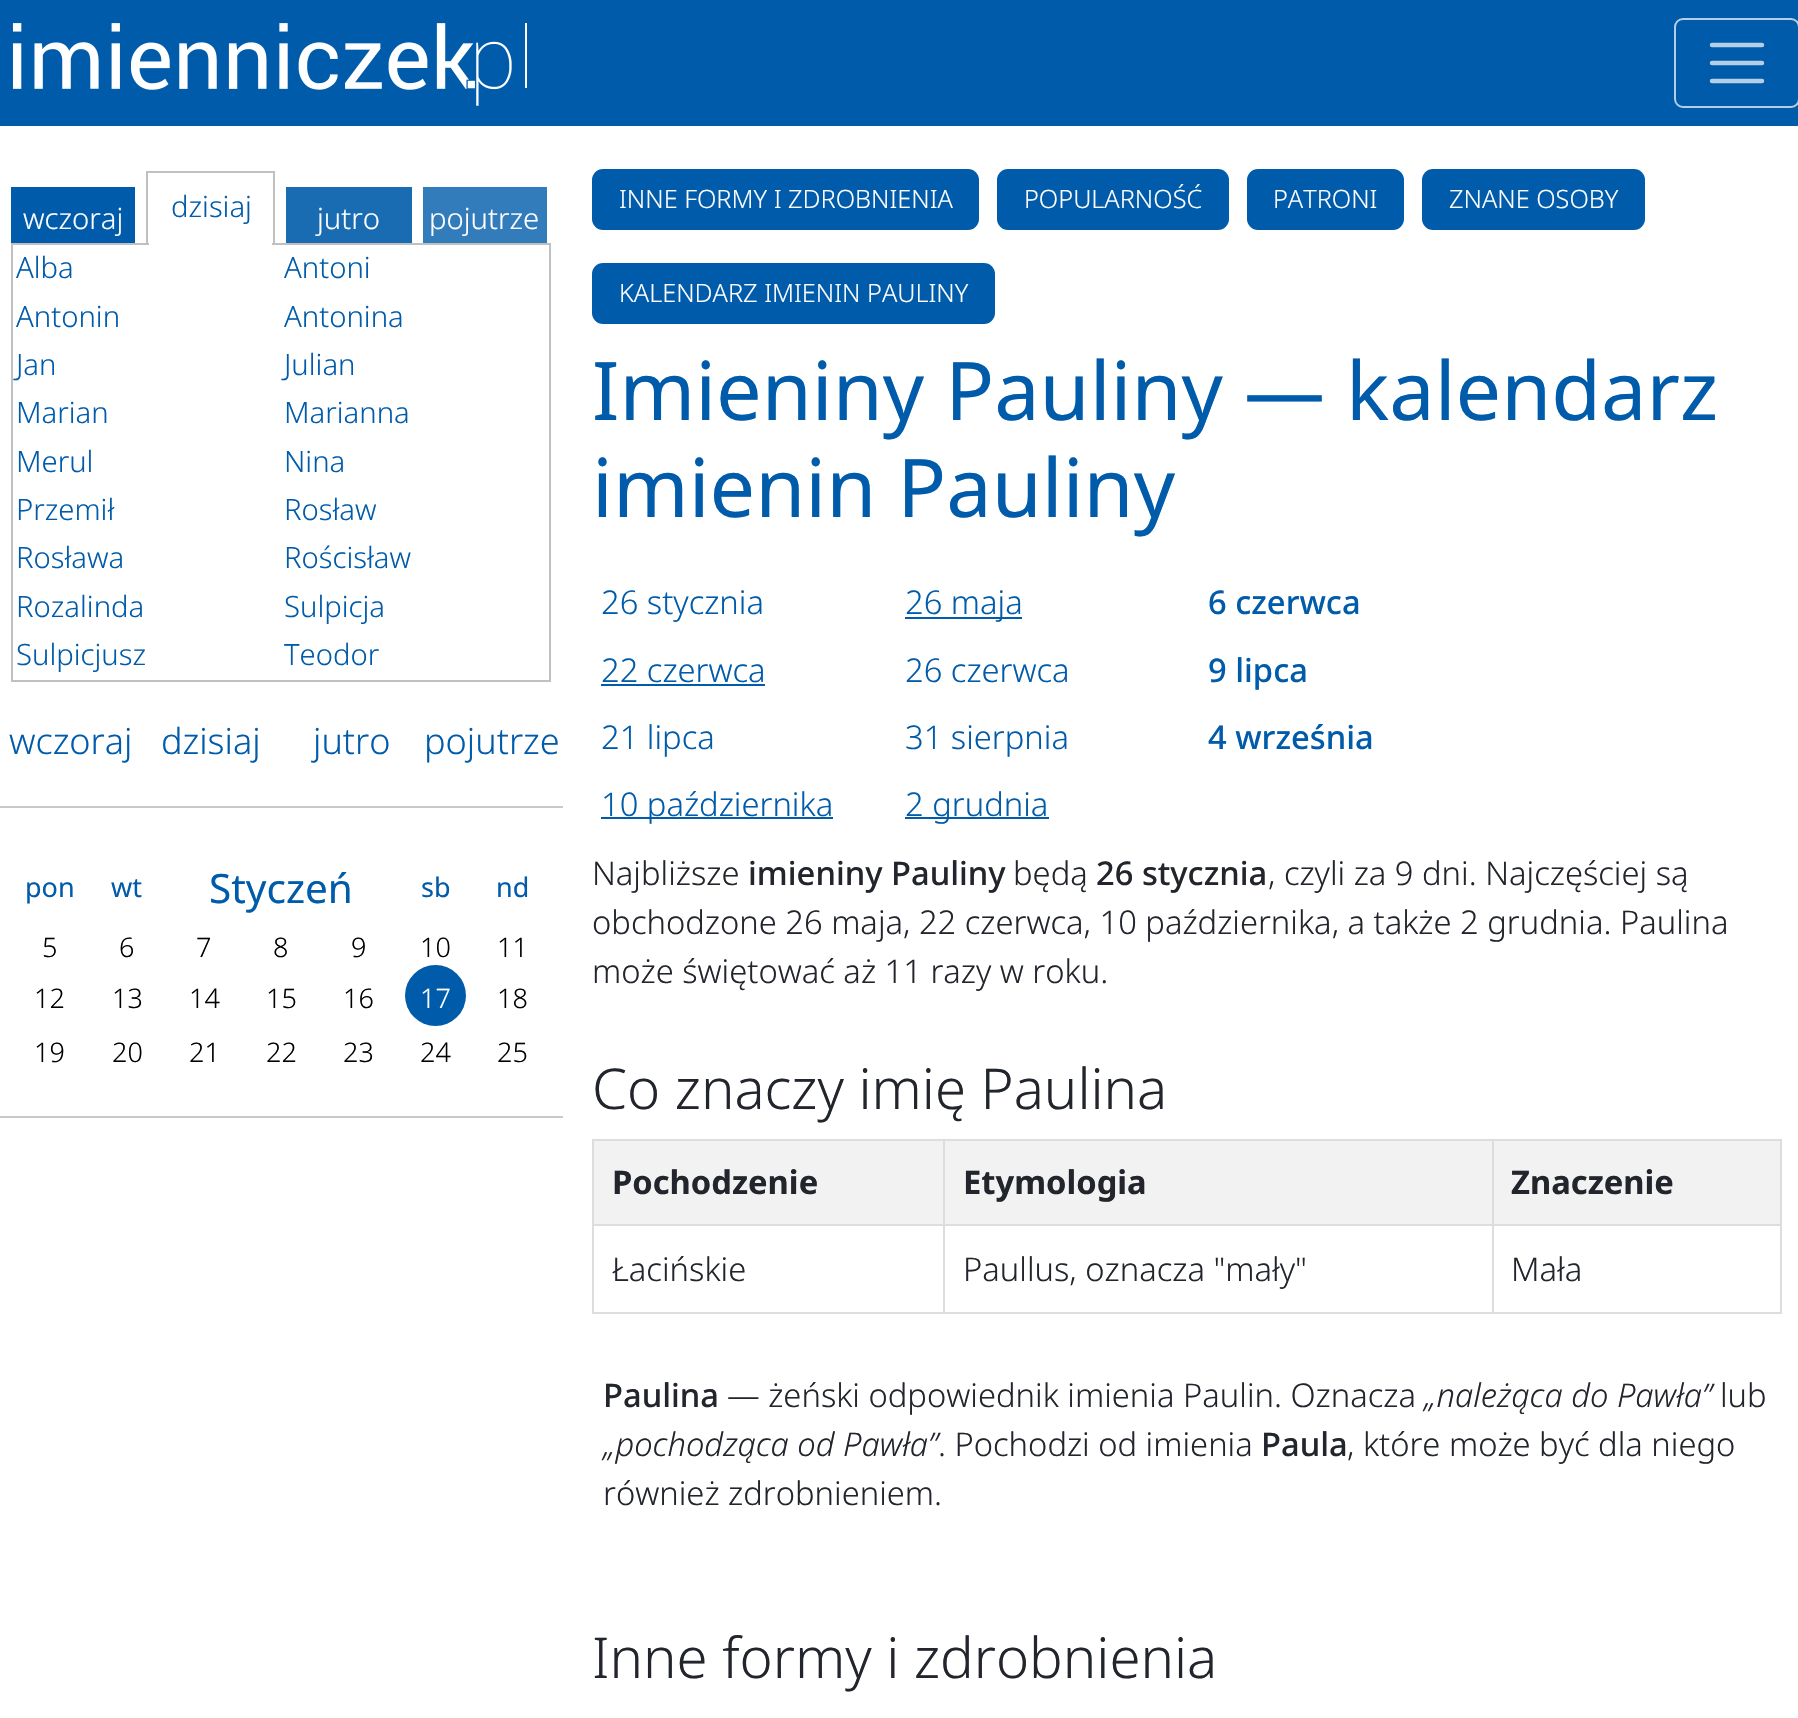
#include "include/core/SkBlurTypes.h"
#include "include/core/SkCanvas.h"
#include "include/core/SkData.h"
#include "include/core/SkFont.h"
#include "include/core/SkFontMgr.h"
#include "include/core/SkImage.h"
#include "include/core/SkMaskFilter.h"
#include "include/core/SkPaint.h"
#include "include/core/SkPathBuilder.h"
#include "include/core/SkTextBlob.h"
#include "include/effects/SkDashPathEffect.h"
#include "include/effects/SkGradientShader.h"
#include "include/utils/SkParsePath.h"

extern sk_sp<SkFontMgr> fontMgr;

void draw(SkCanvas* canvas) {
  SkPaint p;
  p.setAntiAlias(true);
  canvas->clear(SK_ColorWHITE);
  p.setColor(SkColorSetRGB(0, 91, 170));
  canvas->drawRect(SkRect::MakeLTRB(0, 0, 1798, 126), p);
  canvas->drawImageRect(SkImages::DeferredFromEncodedData(SkData::MakeFromFileName("images/1.png")), SkRect::MakeLTRB(12, 23, 527, 106), SkSamplingOptions());
  p.setStyle(SkPaint::kStroke_Style);
  p.setStrokeWidth(2);
  p.setColor(SkColorSetRGB(179, 206, 230));
  canvas->drawRoundRect(SkRect::MakeLTRB(1675, 19, 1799, 107), 8, 8, p);
  p.setStrokeWidth(4.5f);
  p.setStrokeCap(SkPaint::kRound_Cap);
  canvas->drawPath(SkPathBuilder().moveTo(1712, 45).lineTo(1762, 45).moveTo(1712, 63).lineTo(1762, 63).moveTo(1712, 81).lineTo(1762, 81).detach(), p);
  p.setStyle(SkPaint::kFill_Style);
  p.setColor(SkColorSetRGB(0, 91, 170));
  canvas->drawRect(SkRect::MakeLTRB(11, 187, 135, 243), p);
  p.setStyle(SkPaint::kStroke_Style);
  p.setStrokeWidth(2);
  p.setStrokeCap(SkPaint::kButt_Cap);
  p.setColor(SkColorSetRGB(192, 192, 192));
  canvas->drawRect(SkRect::MakeLTRB(12, 244, 550, 681), p);
  canvas->drawRect(SkRect::MakeLTRB(147, 172, 274, 244), p);
  p.setColor(SK_ColorWHITE);
  canvas->drawRect(SkRect::MakeLTRB(150, 186, 271, 244), p);
  p.setStyle(SkPaint::kFill_Style);
  p.setColor(SkColorSetRGB(25, 107, 178));
  canvas->drawRect(SkRect::MakeLTRB(286, 187, 412, 243), p);
  p.setColor(SkColorSetRGB(51, 124, 187));
  canvas->drawRect(SkRect::MakeLTRB(423, 187, 547, 243), p);
  p.setColor(SkColorSetRGB(200, 201, 202));
  canvas->drawRect(SkRect::MakeLTRB(0, 806, 563, 808), p);
  p.setColor(SkColorSetRGB(0, 91, 170));
  canvas->drawCircle(435.5f, 995.5f, 30.5f, p);
  p.setColor(SkColorSetRGB(200, 201, 202));
  canvas->drawRect(SkRect::MakeLTRB(0, 1116, 563, 1118), p);
  p.setColor(SkColorSetRGB(0, 91, 170));
  canvas->drawRoundRect(SkRect::MakeLTRB(592, 169, 979, 230), 11, 11, p);
  canvas->drawRoundRect(SkRect::MakeLTRB(997, 169, 1229, 230), 11, 11, p);
  canvas->drawRoundRect(SkRect::MakeLTRB(1247, 169, 1404, 230), 11, 11, p);
  canvas->drawRoundRect(SkRect::MakeLTRB(1422, 169, 1645, 230), 11, 11, p);
  canvas->drawRoundRect(SkRect::MakeLTRB(592, 263, 995, 324), 11, 11, p);
  canvas->drawRect(SkRect::MakeLTRB(905, 617, 1022, 619), p);
  canvas->drawRect(SkRect::MakeLTRB(601, 684, 765, 686), p);
  canvas->drawRect(SkRect::MakeLTRB(601, 817, 833, 819), p);
  canvas->drawRect(SkRect::MakeLTRB(905, 817, 1049, 819), p);
  p.setColor(SkColorSetRGB(242, 242, 242));
  canvas->drawRect(SkRect::MakeLTRB(594, 1141, 943, 1224), p);
  p.setColor(SkColorSetRGB(221, 221, 221));
  canvas->drawRect(SkRect::MakeLTRB(1492, 1139, 1782, 1141), p);
  canvas->drawRect(SkRect::MakeLTRB(1492, 1224, 1782, 1226), p);
  canvas->drawRect(SkRect::MakeLTRB(1780, 1224, 1782, 1314), p);
  canvas->drawRect(SkRect::MakeLTRB(1492, 1312, 1782, 1314), p);
  canvas->drawRect(SkRect::MakeLTRB(1492, 1224, 1494, 1314), p);
  canvas->drawRect(SkRect::MakeLTRB(943, 1224, 1494, 1226), p);
  canvas->drawRect(SkRect::MakeLTRB(1492, 1139, 1494, 1226), p);
  canvas->drawRect(SkRect::MakeLTRB(943, 1139, 1494, 1141), p);
  canvas->drawRect(SkRect::MakeLTRB(943, 1312, 1494, 1314), p);
  canvas->drawRect(SkRect::MakeLTRB(943, 1224, 945, 1314), p);
  canvas->drawRect(SkRect::MakeLTRB(592, 1224, 945, 1226), p);
  canvas->drawRect(SkRect::MakeLTRB(943, 1139, 945, 1226), p);
  canvas->drawRect(SkRect::MakeLTRB(592, 1139, 945, 1141), p);
  canvas->drawRect(SkRect::MakeLTRB(592, 1312, 945, 1314), p);
  canvas->drawRect(SkRect::MakeLTRB(592, 1224, 594, 1314), p);
  canvas->drawRect(SkRect::MakeLTRB(592, 1139, 594, 1226), p);
  p.setColor(SkColorSetRGB(242, 242, 242));
  canvas->drawRect(SkRect::MakeLTRB(945, 1141, 1492, 1224), p);
  canvas->drawRect(SkRect::MakeLTRB(1494, 1141, 1780, 1224), p);
  p.setColor(SkColorSetRGB(221, 221, 221));
  canvas->drawRect(SkRect::MakeLTRB(1780, 1139, 1782, 1226), p);
  SkFont font1(fontMgr->matchFamilyStyle("Noto Sans", SkFontStyle(300, SkFontStyle::kNormal_Width, SkFontStyle::kUpright_Slant)), 29.25f);
  font1.setSubpixel(true);
  p.setColor(SK_ColorWHITE);
  canvas->drawString("wczoraj", 23, 229, font1, p);
  p.setColor(SkColorSetRGB(0, 91, 170));
  canvas->drawString("dzisiaj", 171, 217, font1, p);
  p.setColor(SK_ColorWHITE);
  canvas->drawString("jutro", 317, 229, font1, p);
  canvas->drawString("pojutrze", 429, 229, font1, p);
  p.setColor(SkColorSetRGB(0, 91, 170));
  canvas->drawString("Alba", 16, 278, font1, p);
  canvas->drawString("Antoni", 284, 278, font1, p);
  canvas->drawString("Antonin", 16, 327, font1, p);
  canvas->drawString("Antonina", 284, 327, font1, p);
  canvas->drawString("Jan", 16, 375, font1, p);
  canvas->drawString("Julian", 284, 375, font1, p);
  canvas->drawString("Marian", 16, 423, font1, p);
  canvas->drawString("Marianna", 284, 423, font1, p);
  canvas->drawString("Merul", 16, 472, font1, p);
  canvas->drawString("Nina", 284, 472, font1, p);
  canvas->drawString("Przemił", 16, 520, font1, p);
  canvas->drawString("Rosław", 284, 520, font1, p);
  canvas->drawString("Rosława", 16, 568, font1, p);
  canvas->drawString("Rościsław", 284, 568, font1, p);
  canvas->drawString("Rozalinda", 16, 617, font1, p);
  canvas->drawString("Sulpicja", 284, 617, font1, p);
  canvas->drawString("Sulpicjusz", 16, 665, font1, p);
  canvas->drawString("Teodor", 284, 665, font1, p);
  SkFont font2(fontMgr->matchFamilyStyle("Noto Sans", SkFontStyle(300, SkFontStyle::kNormal_Width, SkFontStyle::kUpright_Slant)), 36);
  font2.setSubpixel(true);
  canvas->drawString("wczoraj", 9, 754, font2, p);
  canvas->drawString("dzisiaj", 161, 754, font2, p);
  canvas->drawString("jutro", 313, 754, font2, p);
  canvas->drawString("pojutrze", 424, 754, font2, p);
  SkFont font3(fontMgr->matchFamilyStyle("Noto Sans", SkFontStyle::Normal()), 27);
  font3.setSubpixel(true);
  canvas->drawString("pon", 25, 897, font3, p);
  canvas->drawString("wt", 111, 897, font3, p);
  SkFont font4(fontMgr->matchFamilyStyle("Noto Sans", SkFontStyle::Normal()), 40.5f);
  font4.setSubpixel(true);
  canvas->drawString("Styczeń", 209, 903, font4, p);
  canvas->drawString("sb", 421, 897, font3, p);
  canvas->drawString("nd", 496, 897, font3, p);
  SkFont font5(fontMgr->matchFamilyStyle("Noto Sans", SkFontStyle(300, SkFontStyle::kNormal_Width, SkFontStyle::kUpright_Slant)), 27);
  font5.setSubpixel(true);
  p.setColor(SK_ColorBLACK);
  canvas->drawString("5", 42, 957, font5, p);
  canvas->drawString("6", 119, 957, font5, p);
  canvas->drawString("7", 196, 957, font5, p);
  canvas->drawString("8", 273, 957, font5, p);
  canvas->drawString("9", 351, 957, font5, p);
  canvas->drawString("10", 420, 957, font5, p);
  canvas->drawString("11", 497, 957, font5, p);
  canvas->drawString("12", 34, 1008, font5, p);
  canvas->drawString("13", 112, 1008, font5, p);
  canvas->drawString("14", 189, 1008, font5, p);
  canvas->drawString("15", 266, 1008, font5, p);
  canvas->drawString("16", 343, 1008, font5, p);
  p.setColor(SK_ColorWHITE);
  canvas->drawString("17", 420, 1008, font5, p);
  p.setColor(SK_ColorBLACK);
  canvas->drawString("18", 497, 1008, font5, p);
  canvas->drawString("19", 34, 1062, font5, p);
  canvas->drawString("20", 112, 1062, font5, p);
  canvas->drawString("21", 189, 1062, font5, p);
  canvas->drawString("22", 266, 1062, font5, p);
  canvas->drawString("23", 343, 1062, font5, p);
  canvas->drawString("24", 420, 1062, font5, p);
  canvas->drawString("25", 497, 1062, font5, p);
  SkFont font6(fontMgr->matchFamilyStyle("Noto Sans", SkFontStyle(300, SkFontStyle::kNormal_Width, SkFontStyle::kUpright_Slant)), 25.25f);
  font6.setSubpixel(true);
  p.setColor(SK_ColorWHITE);
  canvas->drawString("INNE FORMY I ZDROBNIENIA", 619, 208, font6, p);
  canvas->drawString("POPULARNOŚĆ", 1024, 208, font6, p);
  canvas->drawString("PATRONI", 1273, 208, font6, p);
  canvas->drawString("ZNANE OSOBY", 1449, 208, font6, p);
  canvas->drawString("KALENDARZ IMIENIN PAULINY", 619, 302, font6, p);
  SkFont font7(fontMgr->matchFamilyStyle("Noto Sans", SkFontStyle::Normal()), 81);
  font7.setSubpixel(true);
  p.setColor(SkColorSetRGB(0, 91, 170));
  canvas->drawString("Imieniny Pauliny — kalendarz", 592, 420, font7, p);
  canvas->drawString("imienin Pauliny", 592, 517, font7, p);
  SkFont font8(fontMgr->matchFamilyStyle("Noto Sans", SkFontStyle(300, SkFontStyle::kNormal_Width, SkFontStyle::kUpright_Slant)), 32.7f);
  font8.setSubpixel(true);
  canvas->drawString("26 stycznia", 601, 614, font8, p);
  canvas->drawString("26 maja", 905, 614, font8, p);
  SkFont font9(fontMgr->matchFamilyStyle("Noto Sans", SkFontStyle(500, SkFontStyle::kNormal_Width, SkFontStyle::kUpright_Slant)), 32.7f);
  font9.setSubpixel(true);
  canvas->drawString("6 czerwca", 1208, 614, font9, p);
  canvas->drawString("22 czerwca", 601, 682, font8, p);
  canvas->drawString("26 czerwca", 905, 682, font8, p);
  canvas->drawString("9 lipca", 1208, 682, font9, p);
  canvas->drawString("21 lipca", 601, 749, font8, p);
  canvas->drawString("31 sierpnia", 905, 749, font8, p);
  canvas->drawString("4 września", 1208, 749, font9, p);
  canvas->drawString("10 października", 601, 816, font8, p);
  canvas->drawString("2 grudnia", 905, 816, font8, p);
  p.setColor(SkColorSetRGB(34, 37, 44));
  canvas->drawString("Najbliższe", 592, 885, font8, p);
  canvas->drawString("imieniny Pauliny", 748, 885, font9, p);
  canvas->drawString("będą", 1013, 885, font8, p);
  canvas->drawString("26 stycznia", 1096, 885, font9, p);
  canvas->drawString(", czyli za 9 dni. Najczęściej są", 1268, 885, font8, p);
  canvas->drawString("obchodzone 26 maja, 22 czerwca, 10 października, a także 2 grudnia. Paulina", 592, 934, font8, p);
  canvas->drawString("może świętować aż 11 razy w roku.", 592, 983, font8, p);
  SkFont font10(fontMgr->matchFamilyStyle("Noto Sans", SkFontStyle(300, SkFontStyle::kNormal_Width, SkFontStyle::kUpright_Slant)), 56.25f);
  font10.setSubpixel(true);
  canvas->drawString("Co znaczy imię Paulina", 592, 1109, font10, p);
  SkFont font11(fontMgr->matchFamilyStyle("Noto Sans", SkFontStyle::Bold()), 32.7f);
  font11.setSubpixel(true);
  canvas->drawString("Pochodzenie", 612, 1194, font11, p);
  canvas->drawString("Etymologia", 963, 1194, font11, p);
  canvas->drawString("Znaczenie", 1511, 1194, font11, p);
  canvas->drawString("Łacińskie", 612, 1281, font8, p);
  canvas->drawString("Paullus, oznacza \"mały\"", 963, 1281, font8, p);
  canvas->drawString("Mała", 1511, 1281, font8, p);
  canvas->drawString("Paulina", 603, 1407, font9, p);
  canvas->drawString("— żeński odpowiednik imienia Paulin. Oznacza", 727, 1407, font8, p);
  SkFont font12(fontMgr->matchFamilyStyle("Noto Sans", SkFontStyle(300, SkFontStyle::kNormal_Width, SkFontStyle::kItalic_Slant)), 32.7f);
  font12.setSubpixel(true);
  canvas->drawString("„należąca do Pawła”", 1424, 1407, font12, p);
  canvas->drawString("lub", 1720, 1407, font8, p);
  canvas->drawString("„pochodząca od Pawła”", 603, 1456, font12, p);
  canvas->drawString(". Pochodzi od imienia", 938, 1456, font8, p);
  canvas->drawString("Paula", 1261, 1456, font9, p);
  canvas->drawString(", które może być dla niego", 1347, 1456, font8, p);
  canvas->drawString("również zdrobnieniem.", 603, 1505, font8, p);
  canvas->drawString("Inne formy i zdrobnienia", 592, 1678, font10, p);
}
